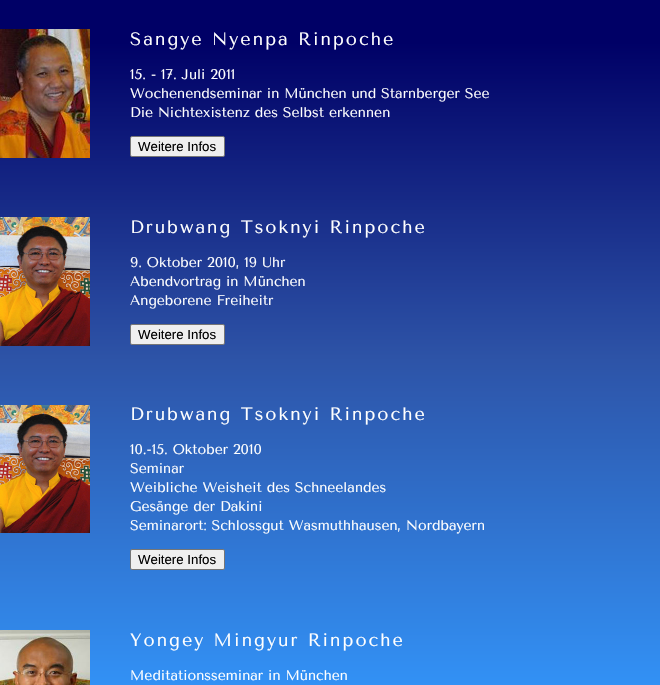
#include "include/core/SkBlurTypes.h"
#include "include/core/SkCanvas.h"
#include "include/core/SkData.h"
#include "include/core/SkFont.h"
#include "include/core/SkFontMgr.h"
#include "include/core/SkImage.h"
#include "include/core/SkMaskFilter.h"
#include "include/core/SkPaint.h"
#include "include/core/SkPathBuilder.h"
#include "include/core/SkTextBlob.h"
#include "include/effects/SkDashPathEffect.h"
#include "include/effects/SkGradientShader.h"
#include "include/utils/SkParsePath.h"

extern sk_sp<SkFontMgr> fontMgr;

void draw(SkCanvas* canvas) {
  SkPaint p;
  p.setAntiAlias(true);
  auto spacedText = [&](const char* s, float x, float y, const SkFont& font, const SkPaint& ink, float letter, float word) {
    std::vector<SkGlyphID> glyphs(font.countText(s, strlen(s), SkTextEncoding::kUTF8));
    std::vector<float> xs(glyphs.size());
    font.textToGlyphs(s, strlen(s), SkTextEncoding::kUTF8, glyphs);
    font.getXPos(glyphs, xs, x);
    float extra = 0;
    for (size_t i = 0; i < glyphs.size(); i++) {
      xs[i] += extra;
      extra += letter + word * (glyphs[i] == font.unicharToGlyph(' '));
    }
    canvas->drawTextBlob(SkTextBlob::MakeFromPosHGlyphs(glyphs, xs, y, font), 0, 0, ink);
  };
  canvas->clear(SK_ColorWHITE);
  canvas->drawImageRect(SkImages::DeferredFromEncodedData(SkData::MakeFromFileName("images/1.png")), SkRect::MakeLTRB(0, 0, 660, 685), SkSamplingOptions());
  canvas->drawImageRect(SkImages::DeferredFromEncodedData(SkData::MakeFromFileName("images/2.png")), SkRect::MakeLTRB(0, 29, 90, 158), SkSamplingOptions());
  p.setColor(SkColorSetRGB(239, 239, 239));
  canvas->drawRoundRect(SkRect::MakeLTRB(130.5f, 136.5f, 224.5f, 156.5f), 1.5f, 1.5f, p);
  p.setStyle(SkPaint::kStroke_Style);
  p.setStrokeWidth(1);
  p.setColor(SkColorSetRGB(118, 118, 118));
  canvas->drawRoundRect(SkRect::MakeLTRB(130.5f, 136.5f, 224.5f, 156.5f), 1.5f, 1.5f, p);
  canvas->drawImageRect(SkImages::DeferredFromEncodedData(SkData::MakeFromFileName("images/3.png")), SkRect::MakeLTRB(0, 217, 90, 346), SkSamplingOptions());
  p.setStyle(SkPaint::kFill_Style);
  p.setColor(SkColorSetRGB(239, 239, 239));
  canvas->drawRoundRect(SkRect::MakeLTRB(130.5f, 324.5f, 224.5f, 344.5f), 1.5f, 1.5f, p);
  p.setStyle(SkPaint::kStroke_Style);
  p.setColor(SkColorSetRGB(118, 118, 118));
  canvas->drawRoundRect(SkRect::MakeLTRB(130.5f, 324.5f, 224.5f, 344.5f), 1.5f, 1.5f, p);
  canvas->drawImageRect(SkImages::DeferredFromEncodedData(SkData::MakeFromFileName("images/4.png")), SkRect::MakeLTRB(0, 405, 90, 533), SkSamplingOptions());
  p.setStyle(SkPaint::kFill_Style);
  p.setColor(SkColorSetRGB(239, 239, 239));
  canvas->drawRoundRect(SkRect::MakeLTRB(130.5f, 549.5f, 224.5f, 569.5f), 1.5f, 1.5f, p);
  p.setStyle(SkPaint::kStroke_Style);
  p.setColor(SkColorSetRGB(118, 118, 118));
  canvas->drawRoundRect(SkRect::MakeLTRB(130.5f, 549.5f, 224.5f, 569.5f), 1.5f, 1.5f, p);
  canvas->drawImageRect(SkImages::DeferredFromEncodedData(SkData::MakeFromFileName("images/5.png")), SkRect::MakeLTRB(0, 630, 90, 685), SkSamplingOptions());
  SkFont font1(fontMgr->matchFamilyStyle("Tenor Sans", SkFontStyle::Normal()), 18);
  font1.setSubpixel(true);
  p.setStyle(SkPaint::kFill_Style);
  p.setColor(SK_ColorWHITE);
  spacedText("Sangye Nyenpa Rinpoche", 130, 45, font1, p, 2, 0);
  SkFont font2(fontMgr->matchFamilyStyle("Tenor Sans", SkFontStyle::Normal()), 14);
  font2.setSubpixel(true);
  canvas->drawString("15. - 17. Juli 2011", 130, 79, font2, p);
  canvas->drawString("Wochenendseminar in München und Starnberger See", 130, 98, font2, p);
  canvas->drawString("Die Nichtexistenz des Selbst erkennen", 130, 117, font2, p);
  SkFont font3(fontMgr->matchFamilyStyle("Liberation Sans", SkFontStyle::Normal()), 13.25f);
  font3.setSubpixel(true);
  p.setColor(SK_ColorBLACK);
  canvas->drawString("Weitere Infos", 138, 151, font3, p);
  p.setColor(SK_ColorWHITE);
  spacedText("Drubwang Tsoknyi Rinpoche", 130, 233, font1, p, 2, 0);
  canvas->drawString("9. Oktober 2010, 19 Uhr", 130, 267, font2, p);
  canvas->drawString("Abendvortrag in München", 130, 286, font2, p);
  canvas->drawString("Angeborene Freiheitr", 130, 305, font2, p);
  p.setColor(SK_ColorBLACK);
  canvas->drawString("Weitere Infos", 138, 339, font3, p);
  p.setColor(SK_ColorWHITE);
  spacedText("Drubwang Tsoknyi Rinpoche", 130, 420, font1, p, 2, 0);
  canvas->drawString("10.-15. Oktober 2010", 130, 454, font2, p);
  canvas->drawString("Seminar", 130, 473, font2, p);
  canvas->drawString("Weibliche Weisheit des Schneelandes", 130, 492, font2, p);
  canvas->drawString("Gesänge der Dakini", 130, 511, font2, p);
  canvas->drawString("Seminarort: Schlossgut Wasmuthhausen, Nordbayern", 130, 530, font2, p);
  p.setColor(SK_ColorBLACK);
  canvas->drawString("Weitere Infos", 138, 564, font3, p);
  p.setColor(SK_ColorWHITE);
  spacedText("Yongey Mingyur Rinpoche", 130, 646, font1, p, 2, 0);
  canvas->drawString("Meditationsseminar in München", 130, 680, font2, p);
}
